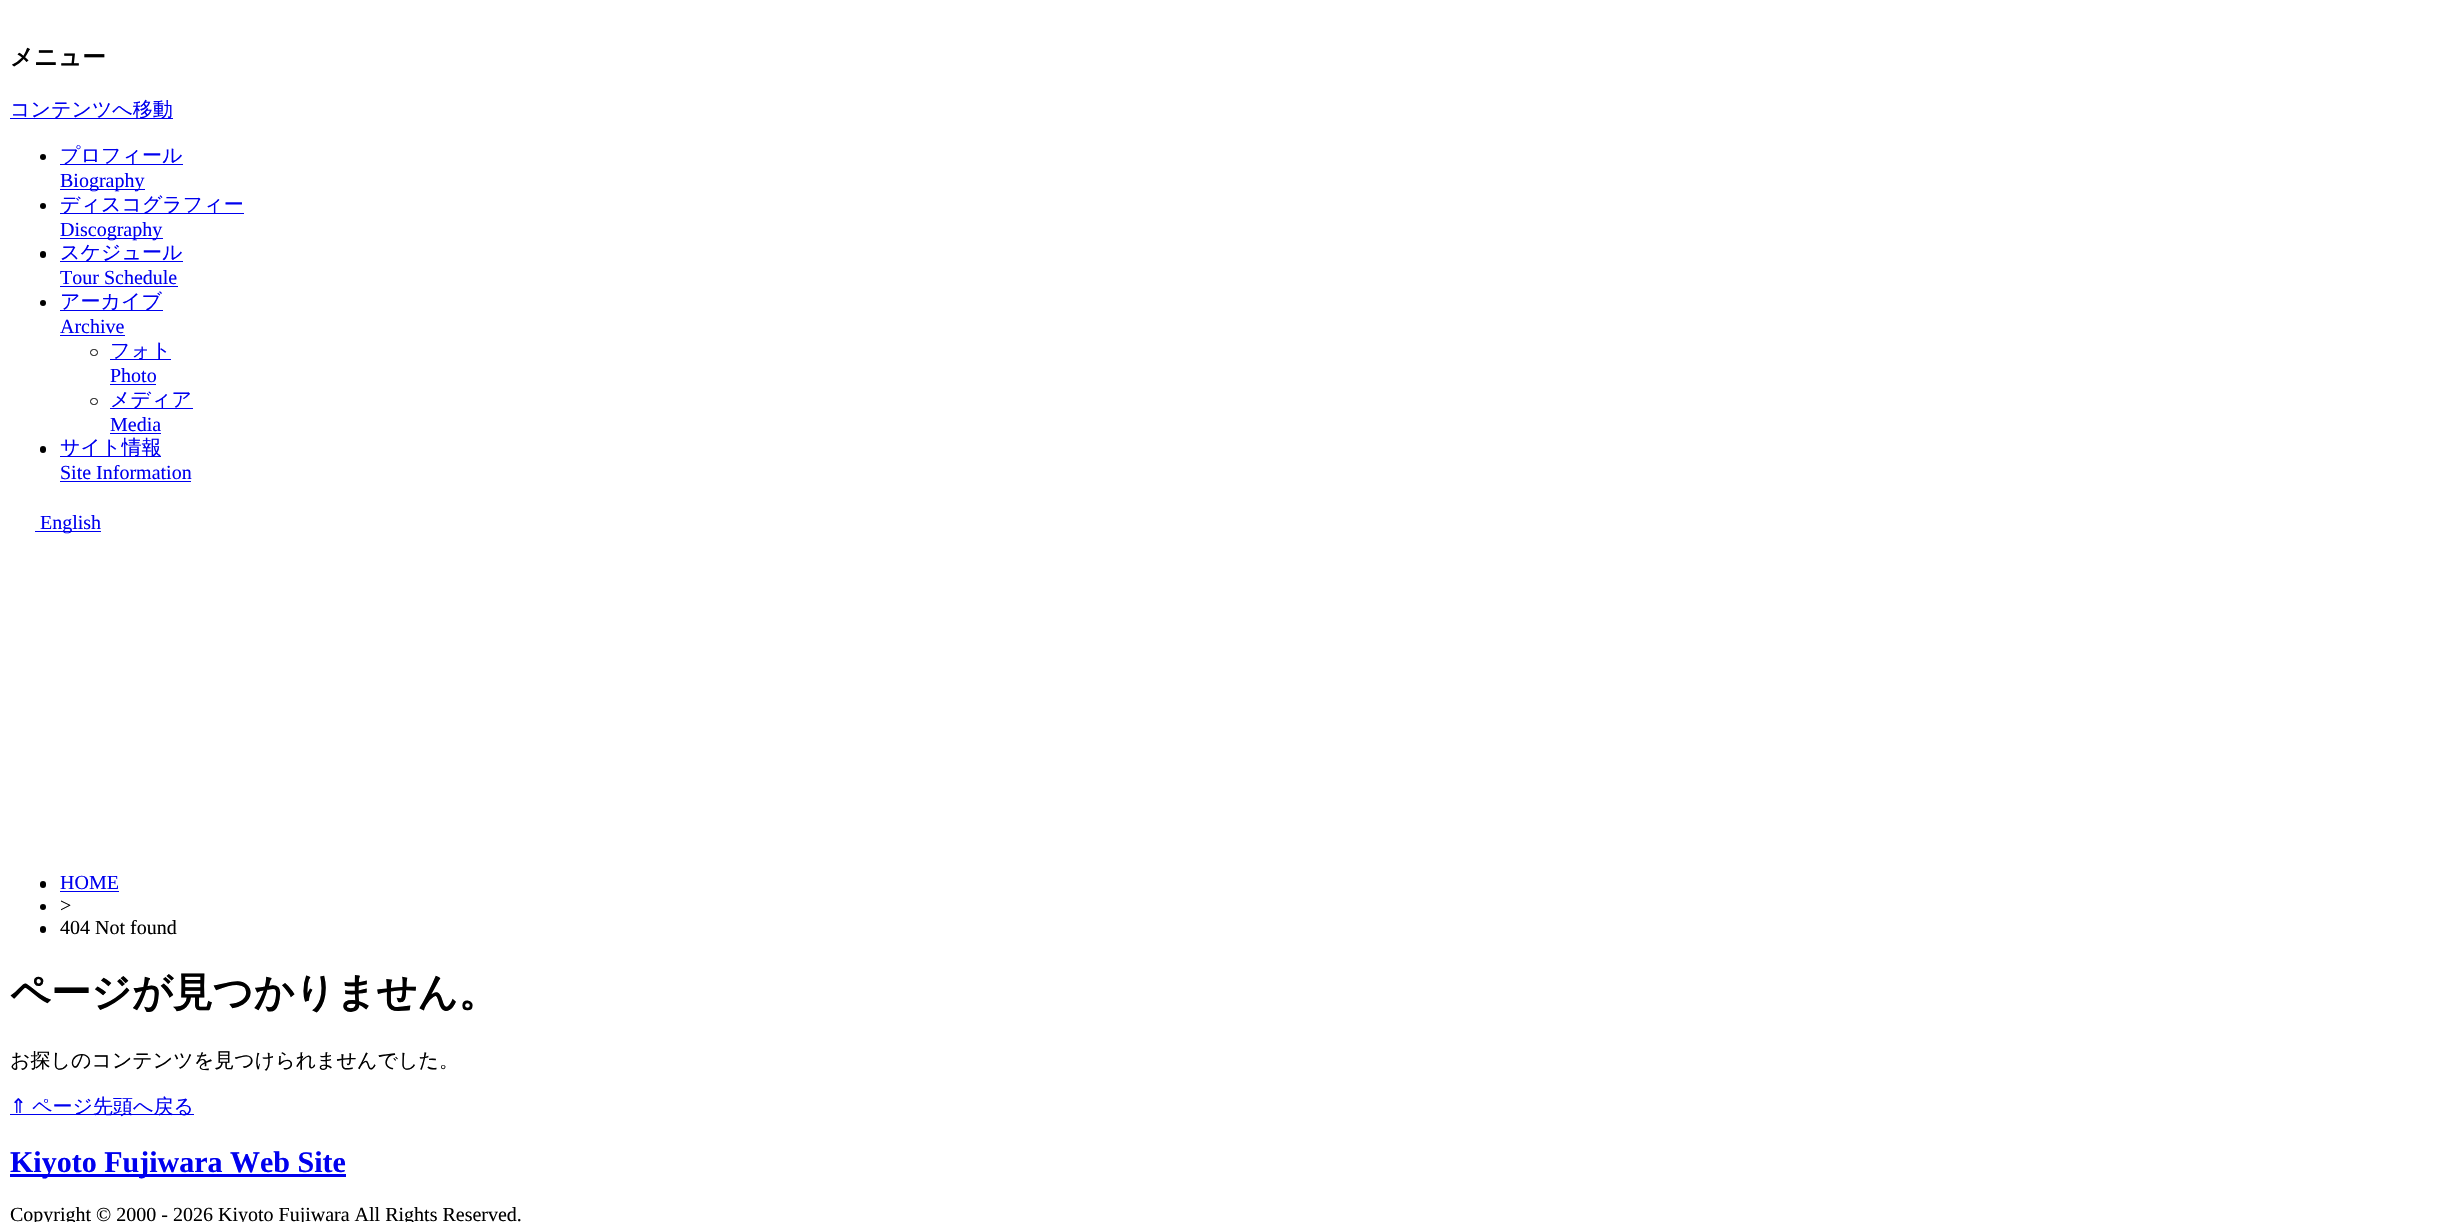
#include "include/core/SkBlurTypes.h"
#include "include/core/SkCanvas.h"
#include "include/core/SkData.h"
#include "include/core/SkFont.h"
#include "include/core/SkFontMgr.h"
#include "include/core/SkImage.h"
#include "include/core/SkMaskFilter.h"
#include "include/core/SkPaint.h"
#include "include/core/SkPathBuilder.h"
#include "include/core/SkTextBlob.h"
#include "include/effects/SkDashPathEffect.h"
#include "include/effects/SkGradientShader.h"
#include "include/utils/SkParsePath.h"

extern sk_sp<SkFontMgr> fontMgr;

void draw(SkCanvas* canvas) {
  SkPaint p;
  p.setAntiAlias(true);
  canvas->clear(SK_ColorWHITE);
  p.setColor(SkColorSetRGB(0, 0, 238));
  canvas->drawRect(SkRect::MakeLTRB(10, 118, 173, 119), p);
  p.setColor(SK_ColorBLACK);
  canvas->drawCircle(43, 157, 3, p);
  p.setColor(SkColorSetRGB(0, 0, 238));
  canvas->drawRect(SkRect::MakeLTRB(60, 164, 183, 165), p);
  canvas->drawRect(SkRect::MakeLTRB(60, 189, 145, 190), p);
  p.setColor(SK_ColorBLACK);
  canvas->drawCircle(43, 206, 3, p);
  p.setColor(SkColorSetRGB(0, 0, 238));
  canvas->drawRect(SkRect::MakeLTRB(60, 213, 244, 214), p);
  canvas->drawRect(SkRect::MakeLTRB(60, 238, 163, 239), p);
  p.setColor(SK_ColorBLACK);
  canvas->drawRoundRect(SkRect::MakeLTRB(40, 251, 46, 258), 3, 3, p);
  p.setColor(SkColorSetRGB(0, 0, 238));
  canvas->drawRect(SkRect::MakeLTRB(60, 261, 183, 262), p);
  canvas->drawRect(SkRect::MakeLTRB(60, 286, 178, 287), p);
  p.setColor(SK_ColorBLACK);
  canvas->drawCircle(43, 303, 3, p);
  p.setColor(SkColorSetRGB(0, 0, 238));
  canvas->drawRect(SkRect::MakeLTRB(60, 310, 163, 311), p);
  canvas->drawRect(SkRect::MakeLTRB(60, 335, 125, 336), p);
  p.setStyle(SkPaint::kStroke_Style);
  p.setStrokeWidth(1);
  p.setColor(SK_ColorBLACK);
  canvas->drawRoundRect(SkRect::MakeLTRB(90.5f, 349.5f, 97.5f, 355.5f), 3, 3, p);
  p.setStyle(SkPaint::kFill_Style);
  p.setColor(SkColorSetRGB(0, 0, 238));
  canvas->drawRect(SkRect::MakeLTRB(110, 359, 171, 360), p);
  canvas->drawRect(SkRect::MakeLTRB(110, 384, 156, 385), p);
  p.setStyle(SkPaint::kStroke_Style);
  p.setColor(SK_ColorBLACK);
  canvas->drawRoundRect(SkRect::MakeLTRB(90.5f, 398.5f, 97.5f, 404.5f), 3, 3, p);
  p.setStyle(SkPaint::kFill_Style);
  p.setColor(SkColorSetRGB(0, 0, 238));
  canvas->drawRect(SkRect::MakeLTRB(110, 408, 193, 409), p);
  canvas->drawRect(SkRect::MakeLTRB(110, 433, 161, 434), p);
  p.setColor(SK_ColorBLACK);
  canvas->drawRoundRect(SkRect::MakeLTRB(40, 446, 46, 453), 3, 3, p);
  p.setColor(SkColorSetRGB(0, 0, 238));
  canvas->drawRect(SkRect::MakeLTRB(60, 456, 161, 457), p);
  canvas->drawRect(SkRect::MakeLTRB(60, 481, 191, 482), p);
  canvas->drawRect(SkRect::MakeLTRB(35, 531, 101, 532), p);
  p.setColor(SK_ColorBLACK);
  canvas->drawRoundRect(SkRect::MakeLTRB(40, 881, 46, 888), 3, 3, p);
  p.setColor(SkColorSetRGB(0, 0, 238));
  canvas->drawRect(SkRect::MakeLTRB(60, 891, 119, 892), p);
  p.setColor(SK_ColorBLACK);
  canvas->drawCircle(43, 907, 3, p);
  canvas->drawRoundRect(SkRect::MakeLTRB(40, 926, 46, 933), 3, 3, p);
  p.setColor(SkColorSetRGB(0, 0, 238));
  canvas->drawRect(SkRect::MakeLTRB(10, 1114, 194, 1115), p);
  canvas->drawRect(SkRect::MakeLTRB(10, 1174, 346, 1177), p);
  SkFont font1(fontMgr->matchFamilyStyle("WenQuanYi Zen Hei", SkFontStyle::Bold()), 23.5f);
  font1.setSubpixel(true);
  p.setColor(SK_ColorBLACK);
  canvas->drawString("メニュー", 10, 65, font1, p);
  SkFont font2(fontMgr->matchFamilyStyle("WenQuanYi Zen Hei", SkFontStyle(500, SkFontStyle::kNormal_Width, SkFontStyle::kUpright_Slant)), 20);
  font2.setSubpixel(true);
  p.setColor(SkColorSetRGB(0, 0, 238));
  canvas->drawString("コンテンツへ移動", 10, 116, font2, p);
  canvas->drawString("プロフィール", 60, 162, font2, p);
  SkFont font3(fontMgr->matchFamilyStyle("Liberation Serif", SkFontStyle::Normal()), 20);
  font3.setSubpixel(true);
  canvas->drawString("Biography", 60, 187, font3, p);
  canvas->drawString("ディスコグラフィー", 60, 211, font2, p);
  canvas->drawString("Discography", 60, 236, font3, p);
  canvas->drawString("スケジュール", 60, 259, font2, p);
  canvas->drawString("Tour Schedule", 60, 284, font3, p);
  canvas->drawString("アーカイブ", 60, 308, font2, p);
  canvas->drawString("Archive", 60, 333, font3, p);
  canvas->drawString("フォト", 110, 357, font2, p);
  canvas->drawString("Photo", 110, 382, font3, p);
  canvas->drawString("メディア", 110, 406, font2, p);
  canvas->drawString("Media", 110, 431, font3, p);
  canvas->drawString("サイト情報", 60, 454, font2, p);
  canvas->drawString("Site Information", 60, 479, font3, p);
  canvas->drawString("English", 40, 529, font3, p);
  canvas->drawString("HOME", 60, 889, font3, p);
  p.setColor(SK_ColorBLACK);
  canvas->drawString(">", 60, 912, font3, p);
  canvas->drawString("404 Not found", 60, 934, font3, p);
  SkFont font4(fontMgr->matchFamilyStyle("WenQuanYi Zen Hei", SkFontStyle::Bold()), 40);
  font4.setSubpixel(true);
  canvas->drawString("ページが見つかりません。", 10, 1006, font4, p);
  canvas->drawString("お探しのコンテンツを見つけられませんでした。", 10, 1067, font2, p);
  SkFont font5(fontMgr->matchFamilyStyle("DejaVu Sans", SkFontStyle::Normal()), 20);
  font5.setSubpixel(true);
  p.setColor(SkColorSetRGB(0, 0, 238));
  canvas->drawString("⇑", 10, 1113, font5, p);
  canvas->drawString("ページ先頭へ戻る", 32, 1113, font2, p);
  SkFont font6(fontMgr->matchFamilyStyle("Liberation Serif", SkFontStyle::Bold()), 30);
  font6.setSubpixel(true);
  canvas->drawString("Kiyoto Fujiwara Web Site", 10, 1172, font6, p);
  p.setColor(SK_ColorBLACK);
  canvas->drawString("Copyright © 2000 - 2026 Kiyoto Fujiwara All Rights Reserved.", 10, 1221, font3, p);
}
